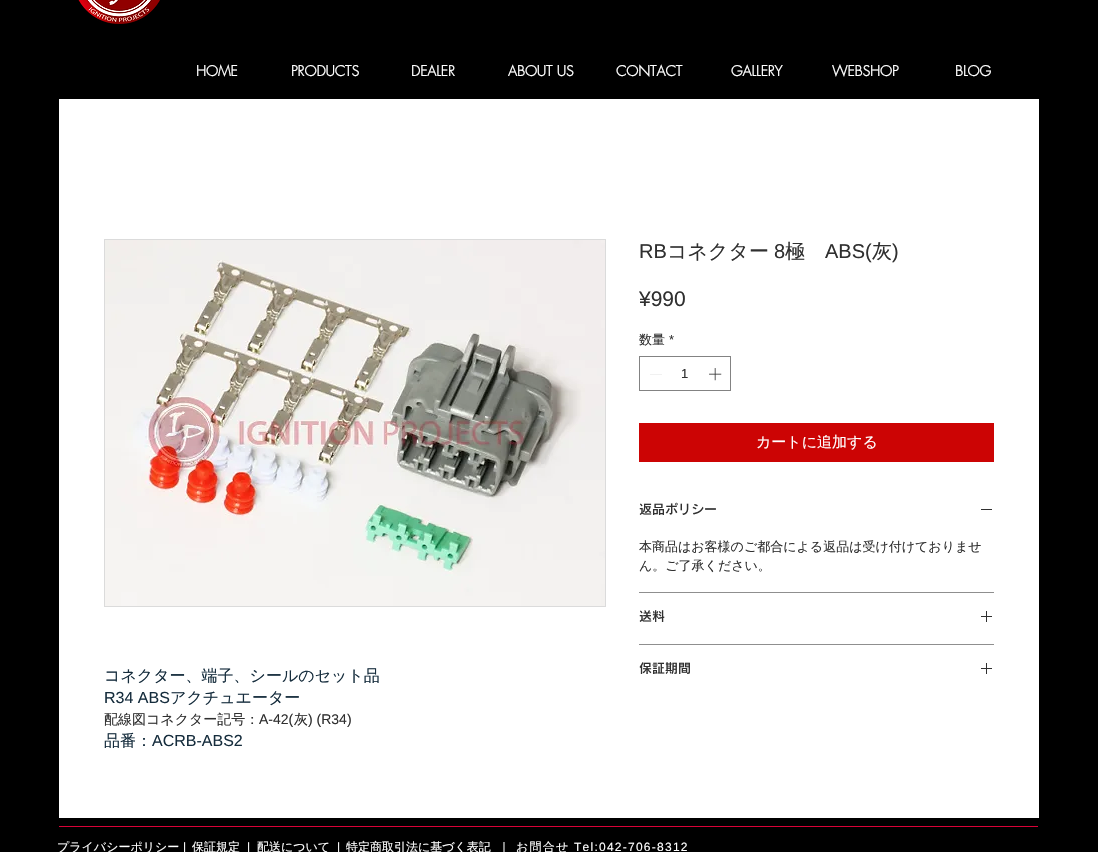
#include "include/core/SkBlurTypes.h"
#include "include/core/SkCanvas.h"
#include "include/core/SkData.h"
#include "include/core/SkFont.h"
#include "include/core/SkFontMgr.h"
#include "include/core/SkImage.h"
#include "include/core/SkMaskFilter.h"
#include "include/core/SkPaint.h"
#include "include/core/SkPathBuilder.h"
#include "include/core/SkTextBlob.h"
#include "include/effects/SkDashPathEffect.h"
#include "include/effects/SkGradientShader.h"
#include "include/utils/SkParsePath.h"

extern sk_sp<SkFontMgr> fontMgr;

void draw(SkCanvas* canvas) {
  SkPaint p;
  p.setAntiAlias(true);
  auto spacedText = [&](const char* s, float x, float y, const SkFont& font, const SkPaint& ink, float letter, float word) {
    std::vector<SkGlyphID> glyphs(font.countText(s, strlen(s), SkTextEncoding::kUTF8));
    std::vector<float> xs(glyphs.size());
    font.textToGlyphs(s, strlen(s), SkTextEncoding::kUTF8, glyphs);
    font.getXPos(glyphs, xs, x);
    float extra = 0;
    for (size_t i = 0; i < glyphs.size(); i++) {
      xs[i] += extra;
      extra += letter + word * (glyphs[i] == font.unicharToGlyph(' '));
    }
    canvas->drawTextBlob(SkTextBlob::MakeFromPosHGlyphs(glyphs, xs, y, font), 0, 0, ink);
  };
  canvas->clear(SK_ColorBLACK);
  canvas->drawImageRect(SkImages::DeferredFromEncodedData(SkData::MakeFromFileName("images/1.png")), SkRect::MakeLTRB(78, 0, 160, 24), SkSamplingOptions());
  p.setColor(SK_ColorWHITE);
  canvas->drawRect(SkRect::MakeLTRB(59, 99, 1039, 818), p);
  p.setStyle(SkPaint::kStroke_Style);
  p.setStrokeWidth(1);
  p.setColor(SkColorSetRGB(131, 131, 131));
  canvas->drawRect(SkRect::MakeLTRB(639.5f, 356.5f, 730.5f, 390.5f), p);
  p.setStyle(SkPaint::kFill_Style);
  p.setColor(SkColorSetRGB(227, 227, 227));
  canvas->drawPath(SkPathBuilder(SkPathFillType::kEvenOdd).moveTo(662, 374).lineTo(662, 374.5f).lineTo(650, 374.5f).lineTo(650, 374).close().detach(), p);
  canvas->drawImageRect(SkImages::DeferredFromEncodedData(SkData::MakeFromFileName("images/2.png")), SkRect::MakeLTRB(709, 368, 722, 381), SkSamplingOptions());
  p.setColor(SkColorSetRGB(204, 4, 4));
  canvas->drawRect(SkRect::MakeLTRB(639, 423, 994, 462), p);
  p.setColor(SkColorSetRGB(143, 143, 143));
  canvas->drawRect(SkRect::MakeLTRB(639, 592, 994, 593), p);
  p.setColor(SkColorSetRGB(48, 48, 48));
  canvas->drawRect(SkRect::MakeLTRB(981, 509, 992, 510), p);
  p.setColor(SkColorSetRGB(143, 143, 143));
  canvas->drawRect(SkRect::MakeLTRB(639, 644, 994, 645), p);
  canvas->drawImageRect(SkImages::DeferredFromEncodedData(SkData::MakeFromFileName("images/3.png")), SkRect::MakeLTRB(981, 611, 992, 622), SkSamplingOptions());
  canvas->drawImageRect(SkImages::DeferredFromEncodedData(SkData::MakeFromFileName("images/3.png")), SkRect::MakeLTRB(981, 663, 992, 674), SkSamplingOptions());
  p.setStyle(SkPaint::kStroke_Style);
  p.setColor(SkColorSetRGB(219, 219, 219));
  canvas->drawRect(SkRect::MakeLTRB(104.5f, 239.5f, 605.5f, 606.5f), p);
  canvas->drawImageRect(SkImages::DeferredFromEncodedData(SkData::MakeFromFileName("images/4.png")), SkRect::MakeLTRB(105, 240, 605, 606), SkSamplingOptions());
  p.setStyle(SkPaint::kFill_Style);
  p.setColor(SkColorSetRGB(217, 2, 56));
  canvas->drawRect(SkRect::MakeLTRB(59, 826, 1038, 827), p);
  SkFont font1(fontMgr->matchFamilyStyle("futura", SkFontStyle::Bold()), 14);
  font1.setSubpixel(true);
  p.setColor(SK_ColorWHITE);
  canvas->drawString("HOME", 196, 76, font1, p);
  canvas->drawString("PRODUCTS", 291, 76, font1, p);
  canvas->drawString("DEALER", 411, 76, font1, p);
  canvas->drawString("ABOUT US", 508, 76, font1, p);
  canvas->drawString("CONTACT", 616, 76, font1, p);
  canvas->drawString("GALLERY", 731, 76, font1, p);
  canvas->drawString("WEBSHOP", 832, 76, font1, p);
  canvas->drawString("BLOG", 955, 76, font1, p);
  SkFont font2(fontMgr->matchFamilyStyle("Liberation Sans", SkFontStyle::Normal()), 20);
  font2.setSubpixel(true);
  p.setColor(SkColorSetRGB(48, 48, 48));
  canvas->drawString("RB", 639, 258, font2, p);
  SkFont font3(fontMgr->matchFamilyStyle("WenQuanYi Zen Hei", SkFontStyle(500, SkFontStyle::kNormal_Width, SkFontStyle::kUpright_Slant)), 20);
  font3.setSubpixel(true);
  canvas->drawString("コネクター", 667, 258, font3, p);
  canvas->drawString("8", 774, 258, font2, p);
  canvas->drawString("極", 785, 258, font3, p);
  canvas->drawString("ABS(", 825, 258, font2, p);
  canvas->drawString("灰", 872, 258, font3, p);
  canvas->drawString(")", 892, 258, font2, p);
  SkFont font4(fontMgr->matchFamilyStyle("Liberation Sans", SkFontStyle::Normal()), 21);
  font4.setSubpixel(true);
  canvas->drawString("¥990", 639, 306, font4, p);
  SkFont font5(fontMgr->matchFamilyStyle("WenQuanYi Zen Hei", SkFontStyle(500, SkFontStyle::kNormal_Width, SkFontStyle::kUpright_Slant)), 13);
  font5.setSubpixel(true);
  canvas->drawString("数量", 639, 344, font5, p);
  SkFont font6(fontMgr->matchFamilyStyle("Liberation Sans", SkFontStyle::Normal()), 13);
  font6.setSubpixel(true);
  canvas->drawString("*", 669, 344, font6, p);
  canvas->drawString("1", 681, 378, font6, p);
  SkFont font7(fontMgr->matchFamilyStyle("WenQuanYi Zen Hei", SkFontStyle(500, SkFontStyle::kNormal_Width, SkFontStyle::kUpright_Slant)), 15);
  font7.setSubpixel(true);
  p.setColor(SK_ColorWHITE);
  canvas->drawString("カートに追加する", 756, 447, font7, p);
  SkFont font8(fontMgr->matchFamilyStyle("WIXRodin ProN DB", SkFontStyle(600, SkFontStyle::kNormal_Width, SkFontStyle::kUpright_Slant)), 13);
  font8.setSubpixel(true);
  p.setColor(SkColorSetRGB(48, 48, 48));
  canvas->drawString("返品ポリシー", 639, 514, font8, p);
  canvas->drawString("本商品はお客様のご都合による返品は受け付けておりませ", 639, 551, font5, p);
  canvas->drawString("ん。ご了承ください。", 639, 570, font5, p);
  canvas->drawString("送料", 639, 621, font8, p);
  canvas->drawString("保証期間", 639, 673, font8, p);
  SkFont font9(fontMgr->matchFamilyStyle("WenQuanYi Zen Hei", SkFontStyle(500, SkFontStyle::kNormal_Width, SkFontStyle::kUpright_Slant)), 16);
  font9.setSubpixel(true);
  p.setColor(SkColorSetRGB(22, 45, 61));
  canvas->drawString("コネクター、端子、シールのセット品", 104, 681, font9, p);
  SkFont font10(fontMgr->matchFamilyStyle("Liberation Sans", SkFontStyle::Normal()), 16);
  font10.setSubpixel(true);
  canvas->drawString("R34 ABS", 104, 703, font10, p);
  canvas->drawString("アクチュエーター", 170, 703, font9, p);
  SkFont font11(fontMgr->matchFamilyStyle("WenQuanYi Zen Hei", SkFontStyle(500, SkFontStyle::kNormal_Width, SkFontStyle::kUpright_Slant)), 14);
  font11.setSubpixel(true);
  p.setColor(SkColorSetRGB(48, 48, 48));
  canvas->drawString("配線図コネクター記号：", 104, 724, font11, p);
  SkFont font12(fontMgr->matchFamilyStyle("Liberation Sans", SkFontStyle::Normal()), 14);
  font12.setSubpixel(true);
  canvas->drawString("A-42(", 259, 724, font12, p);
  canvas->drawString("灰", 294, 724, font11, p);
  canvas->drawString(") (R34)", 308, 724, font12, p);
  p.setColor(SkColorSetRGB(22, 45, 61));
  canvas->drawString("品番：", 104, 746, font9, p);
  canvas->drawString("ACRB-ABS2", 152, 746, font10, p);
  SkFont font13(fontMgr->matchFamilyStyle("WenQuanYi Zen Hei", SkFontStyle(500, SkFontStyle::kNormal_Width, SkFontStyle::kUpright_Slant)), 12);
  font13.setSubpixel(true);
  p.setColor(SK_ColorWHITE);
  canvas->drawString("プライバシーポリシー", 57, 851, font13, p);
  SkFont font14(fontMgr->matchFamilyStyle("Liberation Sans", SkFontStyle::Normal()), 12);
  font14.setSubpixel(true);
  canvas->drawString("|", 183, 851, font14, p);
  canvas->drawString("保証規定", 192, 851, font13, p);
  canvas->drawString("|", 247, 851, font14, p);
  canvas->drawString("配送について", 257, 851, font13, p);
  canvas->drawString("|", 337, 851, font14, p);
  canvas->drawString("特定商取引法に基づく表記", 346, 851, font13, p);
  canvas->drawString("｜", 498, 851, font13, p);
  spacedText("お問合せ", 516, 851, font13, p, 1.25f, 0);
  spacedText("Tel:042-706-8312", 574, 851, font14, p, 1.25f, 0);
}
